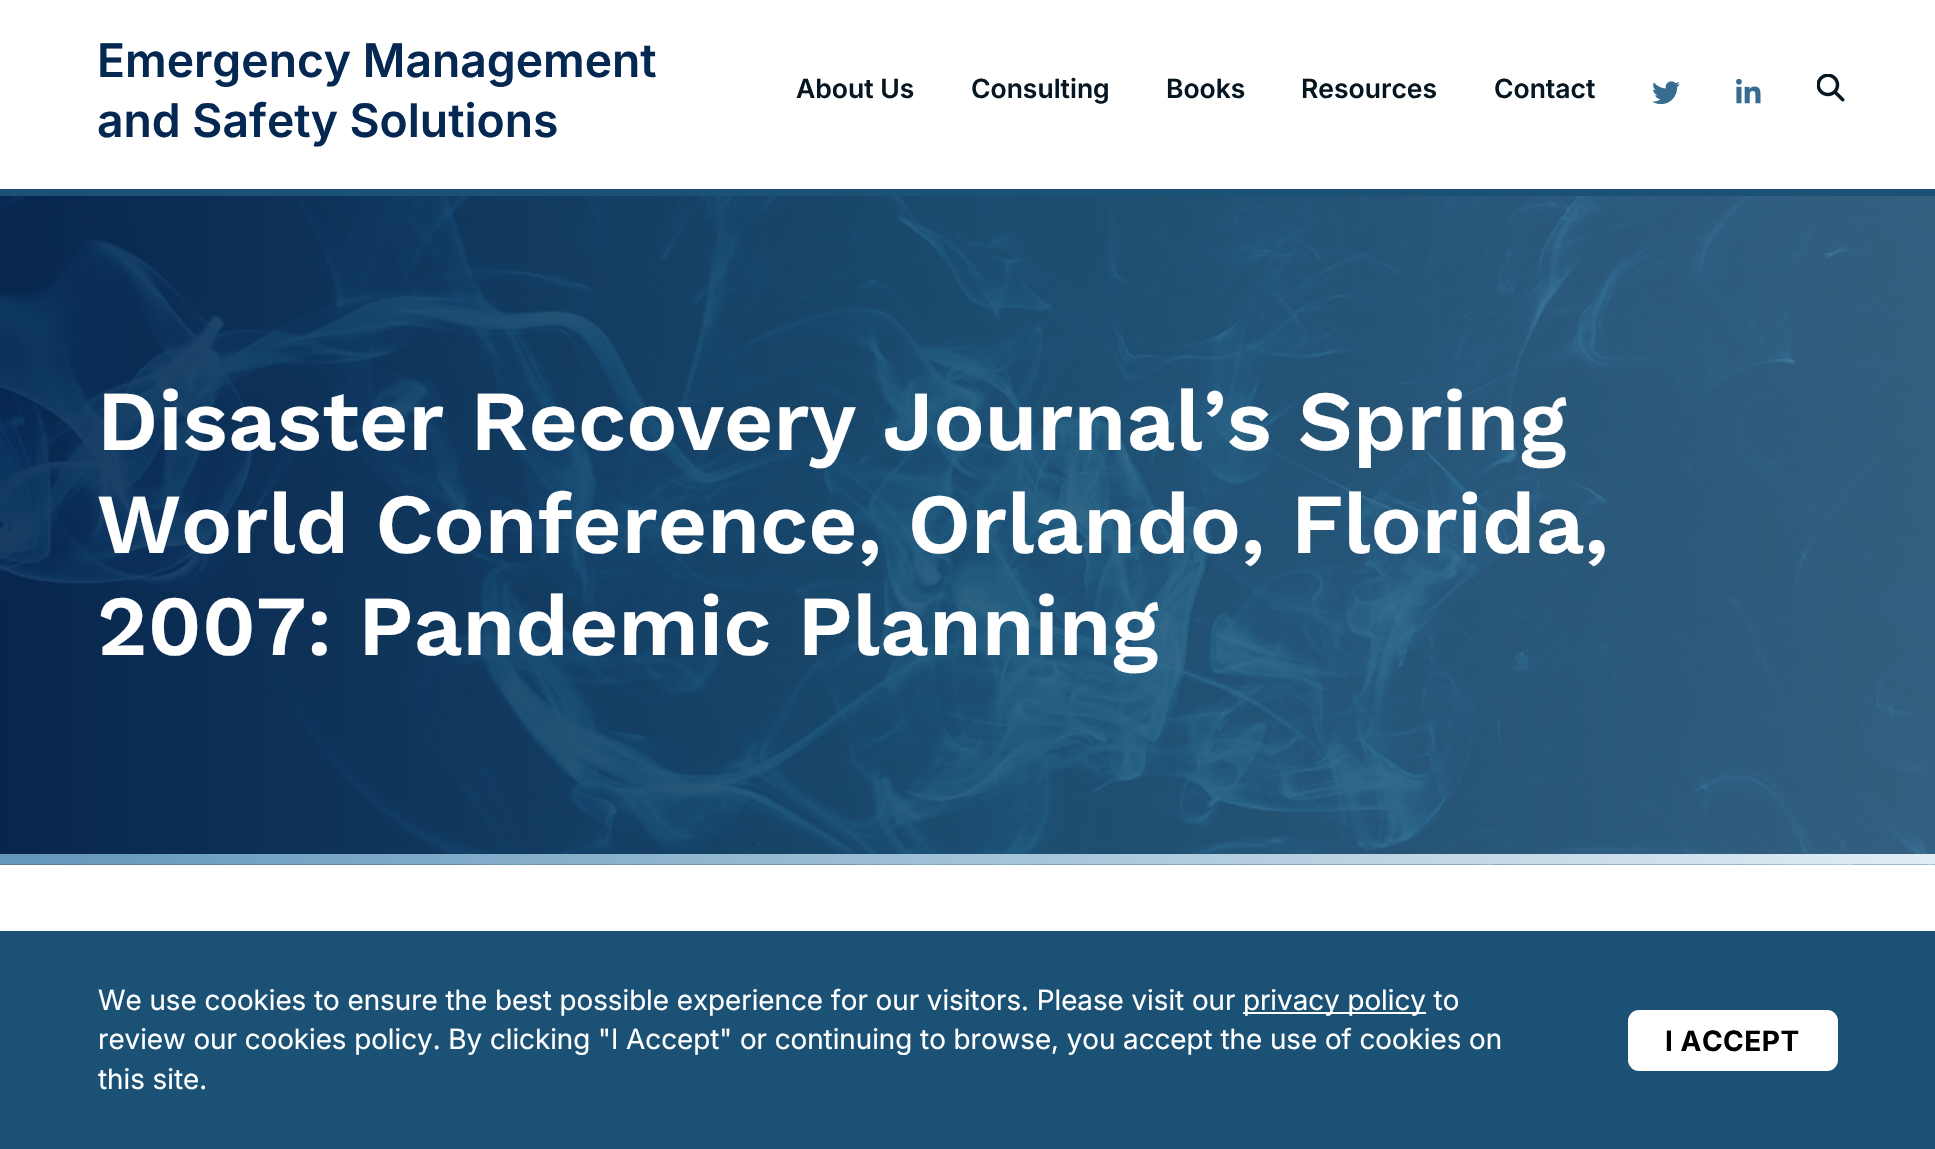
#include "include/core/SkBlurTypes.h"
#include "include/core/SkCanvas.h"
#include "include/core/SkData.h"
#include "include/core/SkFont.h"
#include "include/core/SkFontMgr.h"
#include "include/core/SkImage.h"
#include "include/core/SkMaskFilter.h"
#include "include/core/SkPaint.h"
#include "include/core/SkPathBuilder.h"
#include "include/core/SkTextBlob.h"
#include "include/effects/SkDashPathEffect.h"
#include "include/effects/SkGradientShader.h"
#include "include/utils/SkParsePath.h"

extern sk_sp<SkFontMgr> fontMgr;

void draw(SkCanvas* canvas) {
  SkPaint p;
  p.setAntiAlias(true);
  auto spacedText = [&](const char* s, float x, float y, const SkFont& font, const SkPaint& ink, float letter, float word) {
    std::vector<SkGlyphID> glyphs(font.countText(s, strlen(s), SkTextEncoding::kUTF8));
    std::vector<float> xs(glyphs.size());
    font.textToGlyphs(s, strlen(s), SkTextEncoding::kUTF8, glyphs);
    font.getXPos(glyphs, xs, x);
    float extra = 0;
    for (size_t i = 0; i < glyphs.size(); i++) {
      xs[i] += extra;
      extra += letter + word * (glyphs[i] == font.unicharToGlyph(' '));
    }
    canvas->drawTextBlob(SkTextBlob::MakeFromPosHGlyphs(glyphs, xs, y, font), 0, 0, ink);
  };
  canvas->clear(SK_ColorWHITE);
  p.setColor(SkColorSetRGB(27, 81, 117));
  canvas->drawRect(SkRect::MakeLTRB(0, 189, 1935, 196), p);
  canvas->drawImageRect(SkImages::DeferredFromEncodedData(SkData::MakeFromFileName("images/1.png")), SkRect::MakeLTRB(1652, 81, 1680, 105), SkSamplingOptions());
  canvas->drawImageRect(SkImages::DeferredFromEncodedData(SkData::MakeFromFileName("images/2.png")), SkRect::MakeLTRB(1736, 79, 1761, 104), SkSamplingOptions());
  canvas->drawImageRect(SkImages::DeferredFromEncodedData(SkData::MakeFromFileName("images/3.png")), SkRect::MakeLTRB(1817, 74, 1845, 102), SkSamplingOptions());
  canvas->drawImageRect(SkImages::DeferredFromEncodedData(SkData::MakeFromFileName("images/4.png")), SkRect::MakeLTRB(0, 196, 1935, 865), SkSamplingOptions());
  canvas->drawImageRect(SkImages::DeferredFromEncodedData(SkData::MakeFromFileName("images/5.png")), SkRect::MakeLTRB(0, 854, 1935, 865), SkSamplingOptions());
  canvas->drawRect(SkRect::MakeLTRB(0, 931, 1935, 1149), p);
  p.setColor(SK_ColorWHITE);
  canvas->drawRect(SkRect::MakeLTRB(1243, 1012, 1426, 1014), p);
  canvas->drawRoundRect(SkRect::MakeLTRB(1628, 1010, 1838, 1071), 11, 11, p);
  SkFont font1(fontMgr->matchFamilyStyle("Inter", SkFontStyle(600, SkFontStyle::kNormal_Width, SkFontStyle::kUpright_Slant)), 46.25f);
  font1.setSubpixel(true);
  p.setColor(SkColorSetRGB(5, 40, 83));
  canvas->drawString("Emergency Management", 97, 77, font1, p);
  canvas->drawString("and Safety Solutions", 97, 137, font1, p);
  SkFont font2(fontMgr->matchFamilyStyle("Inter", SkFontStyle(600, SkFontStyle::kNormal_Width, SkFontStyle::kUpright_Slant)), 26.5f);
  font2.setSubpixel(true);
  p.setColor(SkColorSetRGB(7, 23, 33));
  canvas->drawString("About Us", 796, 98, font2, p);
  canvas->drawString("Consulting", 971, 98, font2, p);
  canvas->drawString("Books", 1166, 98, font2, p);
  canvas->drawString("Resources", 1301, 98, font2, p);
  canvas->drawString("Contact", 1494, 98, font2, p);
  SkFont font3(fontMgr->matchFamilyStyle("Work Sans", SkFontStyle(600, SkFontStyle::kNormal_Width, SkFontStyle::kUpright_Slant)), 85.4f);
  font3.setSubpixel(true);
  p.setColor(SK_ColorWHITE);
  canvas->drawString("Disaster Recovery Journal’s Spring", 97, 450, font3, p);
  canvas->drawString("World Conference, Orlando, Florida,", 97, 553, font3, p);
  canvas->drawString("2007: Pandemic Planning", 97, 655, font3, p);
  SkFont font4(fontMgr->matchFamilyStyle("Inter", SkFontStyle::Normal()), 28);
  font4.setSubpixel(true);
  canvas->drawString("We use cookies to ensure the best possible experience for our visitors. Please visit our", 98, 1010, font4, p);
  canvas->drawString("privacy policy to", 1243, 1010, font4, p);
  canvas->drawString("review our cookies policy. By clicking \"I Accept\" or continuing to browse, you accept the use of cookies on", 98, 1049, font4, p);
  canvas->drawString("this site.", 98, 1089, font4, p);
  SkFont font5(fontMgr->matchFamilyStyle("Inter", SkFontStyle::Bold()), 28);
  font5.setSubpixel(true);
  p.setColor(SK_ColorBLACK);
  spacedText("I ACCEPT", 1665, 1051, font5, p, 0.5f, 0);
}
